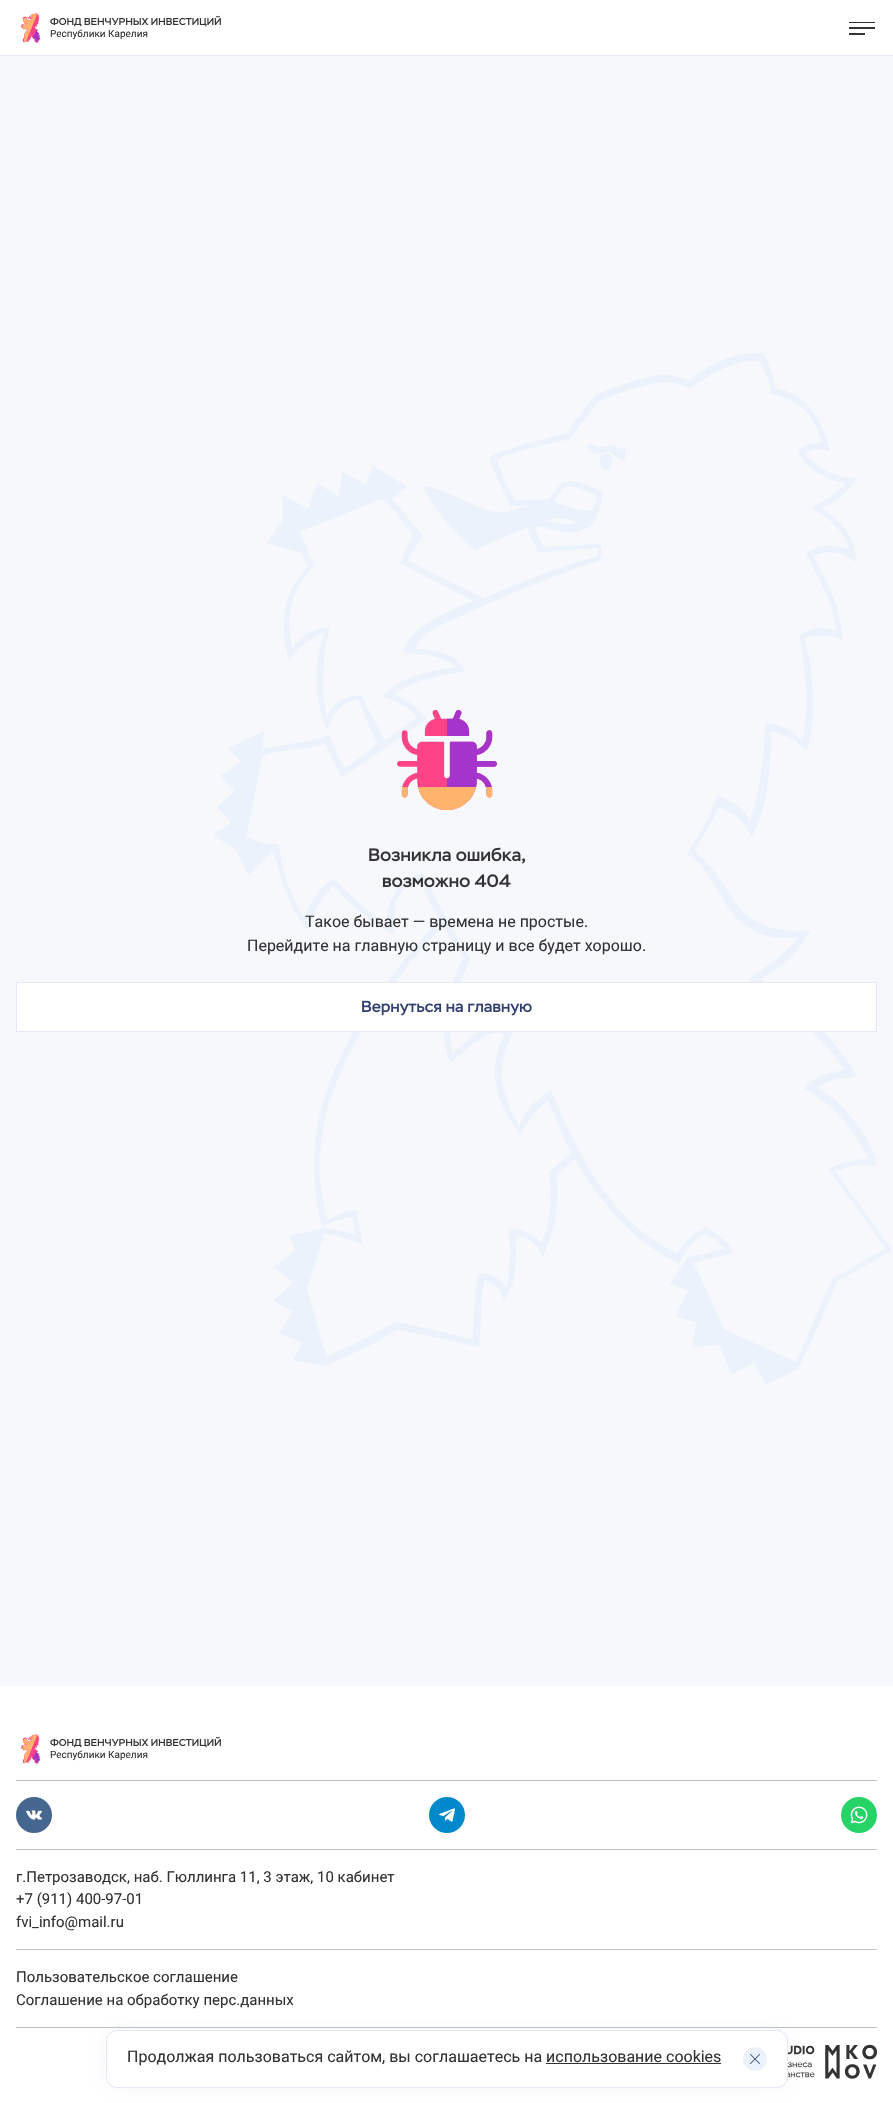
#include "include/core/SkBlurTypes.h"
#include "include/core/SkCanvas.h"
#include "include/core/SkData.h"
#include "include/core/SkFont.h"
#include "include/core/SkFontMgr.h"
#include "include/core/SkImage.h"
#include "include/core/SkMaskFilter.h"
#include "include/core/SkPaint.h"
#include "include/core/SkPathBuilder.h"
#include "include/core/SkTextBlob.h"
#include "include/effects/SkDashPathEffect.h"
#include "include/effects/SkGradientShader.h"
#include "include/utils/SkParsePath.h"

extern sk_sp<SkFontMgr> fontMgr;

void draw(SkCanvas* canvas) {
  SkPaint p;
  p.setAntiAlias(true);
  canvas->clear(SkColorSetRGB(246, 248, 252));
  canvas->drawImageRect(SkImages::DeferredFromEncodedData(SkData::MakeFromFileName("images/1.png")), SkRect::MakeLTRB(214, 353, 892, 1385), SkSamplingOptions());
  p.setColor(SK_ColorWHITE);
  canvas->drawRect(SkRect::MakeLTRB(0, 0, 893, 55), p);
  p.setColor(SkColorSetRGB(228, 232, 249));
  canvas->drawRect(SkRect::MakeLTRB(0, 55, 893, 56), p);
  canvas->drawImageRect(SkImages::DeferredFromEncodedData(SkData::MakeFromFileName("images/2.png")), SkRect::MakeLTRB(21, 13, 41, 43), SkSamplingOptions());
  canvas->drawImageRect(SkImages::DeferredFromEncodedData(SkData::MakeFromFileName("images/3.png")), SkRect::MakeLTRB(50, 15, 221, 27), SkSamplingOptions());
  p.setColor(SkColorSetRGB(51, 51, 51));
  canvas->drawRect(SkRect::MakeLTRB(849, 22, 875, 23), p);
  canvas->drawRect(SkRect::MakeLTRB(849, 27, 875, 29), p);
  canvas->drawRect(SkRect::MakeLTRB(849, 33, 865, 35), p);
  canvas->drawImageRect(SkImages::DeferredFromEncodedData(SkData::MakeFromFileName("images/4.png")), SkRect::MakeLTRB(397, 710, 497, 810), SkSamplingOptions());
  canvas->drawImageRect(SkImages::DeferredFromEncodedData(SkData::MakeFromFileName("images/5.png")), SkRect::MakeLTRB(369, 847, 526, 864), SkSamplingOptions());
  canvas->drawImageRect(SkImages::DeferredFromEncodedData(SkData::MakeFromFileName("images/6.png")), SkRect::MakeLTRB(382, 874, 511, 888), SkSamplingOptions());
  p.setColor(SK_ColorWHITE);
  canvas->drawRect(SkRect::MakeLTRB(16.5f, 982.5f, 876.5f, 1031.5f), p);
  p.setStyle(SkPaint::kStroke_Style);
  p.setStrokeWidth(1);
  p.setColor(SkColorSetRGB(228, 232, 249));
  canvas->drawRect(SkRect::MakeLTRB(16.5f, 982.5f, 876.5f, 1031.5f), p);
  canvas->drawImageRect(SkImages::DeferredFromEncodedData(SkData::MakeFromFileName("images/7.png")), SkRect::MakeLTRB(362, 1000, 532, 1016), SkSamplingOptions());
  p.setStyle(SkPaint::kFill_Style);
  p.setColor(SK_ColorWHITE);
  canvas->drawRect(SkRect::MakeLTRB(0, 1686, 893, 2103), p);
  canvas->drawImageRect(SkImages::DeferredFromEncodedData(SkData::MakeFromFileName("images/2.png")), SkRect::MakeLTRB(21, 1734, 41, 1764), SkSamplingOptions());
  canvas->drawImageRect(SkImages::DeferredFromEncodedData(SkData::MakeFromFileName("images/3.png")), SkRect::MakeLTRB(50, 1736, 221, 1748), SkSamplingOptions());
  p.setColor(SkColorSetRGB(193, 193, 193));
  canvas->drawRect(SkRect::MakeLTRB(16, 1780, 877, 1781), p);
  p.setColor(SkColorSetRGB(69, 102, 142));
  canvas->drawCircle(34, 1815, 18, p);
  canvas->drawImageRect(SkImages::DeferredFromEncodedData(SkData::MakeFromFileName("images/8.png")), SkRect::MakeLTRB(26, 1810, 42, 1820), SkSamplingOptions());
  p.setColor(SkColorSetRGB(0, 136, 204));
  canvas->drawCircle(447, 1815, 18, p);
  canvas->drawImageRect(SkImages::DeferredFromEncodedData(SkData::MakeFromFileName("images/9.png")), SkRect::MakeLTRB(439, 1808, 455, 1822), SkSamplingOptions());
  p.setColor(SkColorSetRGB(37, 211, 102));
  canvas->drawCircle(859, 1815, 18, p);
  canvas->drawImageRect(SkImages::DeferredFromEncodedData(SkData::MakeFromFileName("images/10.png")), SkRect::MakeLTRB(850, 1806, 868, 1824), SkSamplingOptions());
  p.setColor(SkColorSetRGB(193, 193, 193));
  canvas->drawRect(SkRect::MakeLTRB(16, 1849, 877, 1850), p);
  canvas->drawRect(SkRect::MakeLTRB(16, 1949, 877, 1950), p);
  canvas->drawRect(SkRect::MakeLTRB(16, 2027, 877, 2028), p);
  canvas->drawImageRect(SkImages::DeferredFromEncodedData(SkData::MakeFromFileName("images/11.png")), SkRect::MakeLTRB(787, 2044, 877, 2079), SkSamplingOptions());
  p.setColor(SkColorSetARGB(23, 125, 142, 165));
  p.setMaskFilter(SkMaskFilter::MakeBlur(kNormal_SkBlurStyle, 10));
  canvas->drawRoundRect(SkRect::MakeLTRB(107, 2031, 787, 2087), 10, 10, p);
  p.setMaskFilter(nullptr);
  p.setColor(SK_ColorWHITE);
  canvas->drawRoundRect(SkRect::MakeLTRB(107, 2031, 787, 2087), 10, 10, p);
  p.setColor(SkColorSetRGB(51, 51, 51));
  canvas->drawRect(SkRect::MakeLTRB(546, 2063, 721, 2064), p);
  canvas->drawImageRect(SkImages::DeferredFromEncodedData(SkData::MakeFromFileName("images/12.png")), SkRect::MakeLTRB(743, 2047, 767, 2071), SkSamplingOptions());
  p.setStyle(SkPaint::kStroke_Style);
  p.setColor(SkColorSetRGB(228, 232, 249));
  canvas->drawRoundRect(SkRect::MakeLTRB(106.5f, 2030.5f, 787.5f, 2087.5f), 10.5f, 10.5f, p);
  SkFont font1(fontMgr->matchFamilyStyle("Roboto", SkFontStyle::Normal()), 10);
  font1.setSubpixel(true);
  p.setStyle(SkPaint::kFill_Style);
  p.setColor(SkColorSetRGB(51, 51, 51));
  canvas->drawString("Республики Карелия", 50, 37, font1, p);
  SkFont font2(fontMgr->matchFamilyStyle("Roboto", SkFontStyle::Normal()), 16);
  font2.setSubpixel(true);
  canvas->drawString("Такое бывает — времена не простые.", 305, 927, font2, p);
  canvas->drawString("Перейдите на главную страницу и все будет хорошо.", 247, 951, font2, p);
  canvas->drawString("Республики Карелия", 50, 1758, font1, p);
  SkFont font3(fontMgr->matchFamilyStyle("Roboto", SkFontStyle::Normal()), 15);
  font3.setSubpixel(true);
  canvas->drawString("г.Петрозаводск, наб. Гюллинга 11, 3 этаж, 10 кабинет", 16, 1882, font3, p);
  canvas->drawString("+7 (911) 400-97-01", 16, 1904, font3, p);
  canvas->drawString("fvi_info@mail.ru", 16, 1927, font3, p);
  canvas->drawString("Пользовательское соглашение", 16, 1982, font3, p);
  canvas->drawString("Соглашение на обработку перс.данных", 16, 2005, font3, p);
  canvas->drawString("Продолжая пользоваться сайтом, вы соглашаетесь на использование cookies", 127, 2062, font2, p);
}
